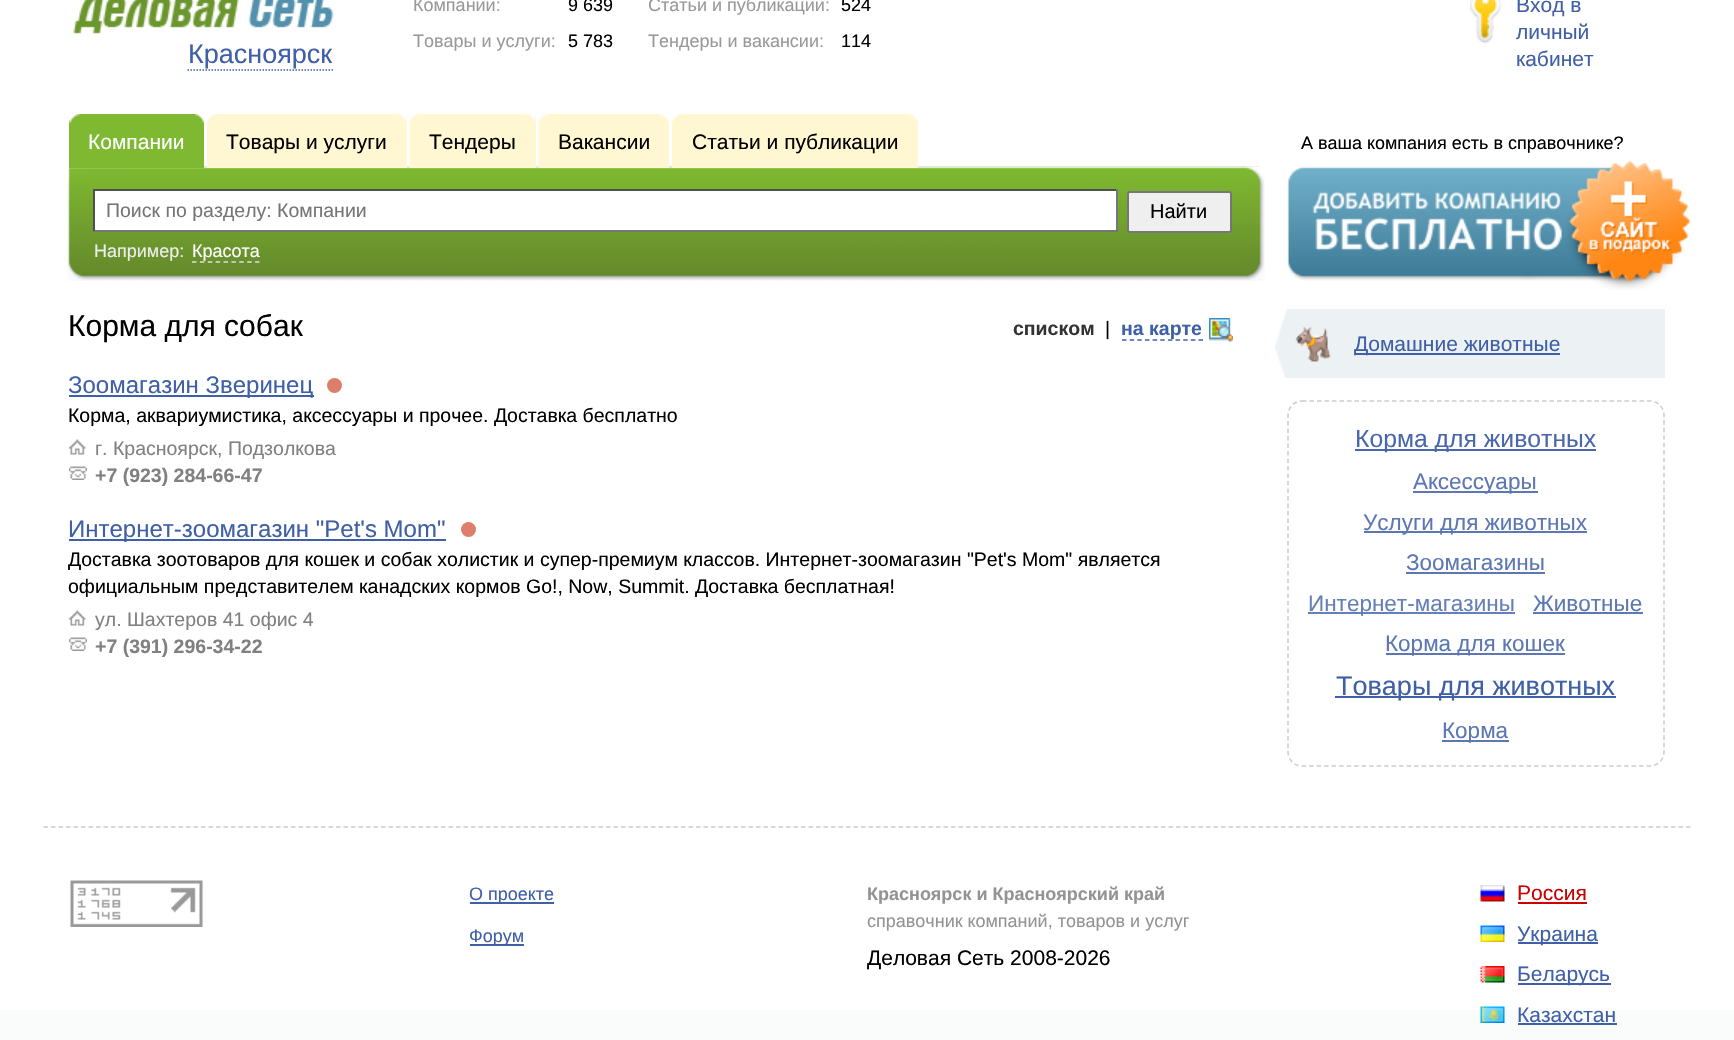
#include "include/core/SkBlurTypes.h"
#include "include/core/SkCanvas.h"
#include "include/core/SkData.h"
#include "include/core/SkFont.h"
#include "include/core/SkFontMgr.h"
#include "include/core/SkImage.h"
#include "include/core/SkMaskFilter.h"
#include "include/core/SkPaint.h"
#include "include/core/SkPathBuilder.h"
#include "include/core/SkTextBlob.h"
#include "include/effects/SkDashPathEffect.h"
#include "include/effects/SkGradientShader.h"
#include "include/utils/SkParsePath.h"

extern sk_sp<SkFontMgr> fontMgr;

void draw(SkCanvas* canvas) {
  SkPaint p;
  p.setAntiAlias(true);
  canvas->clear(SK_ColorWHITE);
  canvas->drawImageRect(SkImages::DeferredFromEncodedData(SkData::MakeFromFileName("images/1.png")), SkRect::MakeLTRB(73, 0, 334, 34), SkSamplingOptions());
  p.setStyle(SkPaint::kStroke_Style);
  p.setStrokeWidth(1.5f);
  p.setColor(SkColorSetRGB(63, 95, 166));
  p.setPathEffect(SkDashPathEffect::Make({{1.5f, 1.5f}}, 0));
  canvas->drawPath(SkPathBuilder().moveTo(187.5f, 70).lineTo(333, 70).detach(), p);
  p.setPathEffect(nullptr);
  canvas->drawImageRect(SkImages::DeferredFromEncodedData(SkData::MakeFromFileName("images/2.png")), SkRect::MakeLTRB(1470, 0, 1502, 44), SkSamplingOptions());
  canvas->drawImageRect(SkImages::DeferredFromEncodedData(SkData::MakeFromFileName("images/9.png")), SkRect::MakeLTRB(69, 166, 1260, 281), SkSamplingOptions());
  canvas->drawImageRect(SkImages::DeferredFromEncodedData(SkData::MakeFromFileName("images/10.png")), SkRect::MakeLTRB(67, 166, 86, 281), SkSamplingOptions());
  p.setStyle(SkPaint::kFill_Style);
  p.setColor(SkColorSetRGB(126, 185, 49));
  canvas->drawRect(SkRect::MakeLTRB(69, 114, 204, 168), p);
  canvas->drawImageRect(SkImages::DeferredFromEncodedData(SkData::MakeFromFileName("images/3.png")), SkRect::MakeLTRB(195, 114, 204, 124), SkSamplingOptions());
  canvas->drawImageRect(SkImages::DeferredFromEncodedData(SkData::MakeFromFileName("images/4.png")), SkRect::MakeLTRB(69, 114, 80, 124), SkSamplingOptions());
  p.setColor(SkColorSetRGB(255, 247, 209));
  canvas->drawRect(SkRect::MakeLTRB(207, 114, 407, 168), p);
  canvas->drawImageRect(SkImages::DeferredFromEncodedData(SkData::MakeFromFileName("images/5.png")), SkRect::MakeLTRB(397, 114, 407, 123), SkSamplingOptions());
  canvas->drawImageRect(SkImages::DeferredFromEncodedData(SkData::MakeFromFileName("images/6.png")), SkRect::MakeLTRB(207, 114, 216, 123), SkSamplingOptions());
  canvas->drawRect(SkRect::MakeLTRB(418, 114, 536, 168), p);
  canvas->drawImageRect(SkImages::DeferredFromEncodedData(SkData::MakeFromFileName("images/5.png")), SkRect::MakeLTRB(526, 114, 536, 123), SkSamplingOptions());
  canvas->drawImageRect(SkImages::DeferredFromEncodedData(SkData::MakeFromFileName("images/7.png")), SkRect::MakeLTRB(409, 114, 419, 168), SkSamplingOptions());
  canvas->drawRect(SkRect::MakeLTRB(547, 114, 669, 168), p);
  canvas->drawImageRect(SkImages::DeferredFromEncodedData(SkData::MakeFromFileName("images/8.png")), SkRect::MakeLTRB(660, 114, 669, 123), SkSamplingOptions());
  canvas->drawImageRect(SkImages::DeferredFromEncodedData(SkData::MakeFromFileName("images/7.png")), SkRect::MakeLTRB(538, 114, 548, 168), SkSamplingOptions());
  canvas->drawRect(SkRect::MakeLTRB(672, 114, 918, 168), p);
  canvas->drawImageRect(SkImages::DeferredFromEncodedData(SkData::MakeFromFileName("images/8.png")), SkRect::MakeLTRB(909, 114, 918, 123), SkSamplingOptions());
  canvas->drawImageRect(SkImages::DeferredFromEncodedData(SkData::MakeFromFileName("images/6.png")), SkRect::MakeLTRB(672, 114, 681, 123), SkSamplingOptions());
  p.setColor(SK_ColorWHITE);
  canvas->drawRect(SkRect::MakeLTRB(95, 191, 1116, 230), p);
  p.setColor(SkColorSetRGB(79, 79, 79));
  canvas->drawRect(SkRect::MakeLTRB(93, 189, 1118, 191), p);
  p.setColor(SkColorSetRGB(118, 118, 118));
  canvas->drawRect(SkRect::MakeLTRB(1116, 189, 1118, 231), p);
  canvas->drawRect(SkRect::MakeLTRB(93, 230, 1118, 232), p);
  p.setColor(SkColorSetRGB(79, 79, 79));
  canvas->drawRect(SkRect::MakeLTRB(93, 189, 95, 231), p);
  p.setColor(SkColorSetRGB(239, 239, 239));
  canvas->drawRoundRect(SkRect::MakeLTRB(1128, 192, 1231, 232), 2, 2, p);
  p.setStyle(SkPaint::kStroke_Style);
  p.setStrokeWidth(2);
  p.setColor(SkColorSetRGB(118, 118, 118));
  canvas->drawRoundRect(SkRect::MakeLTRB(1128, 192, 1231, 232), 2, 2, p);
  canvas->drawImageRect(SkImages::DeferredFromEncodedData(SkData::MakeFromFileName("images/11.png")), SkRect::MakeLTRB(1246, 166, 1265, 281), SkSamplingOptions());
  p.setStrokeWidth(1.5f);
  p.setColor(SkColorSetRGB(221, 221, 221));
  p.setPathEffect(SkDashPathEffect::Make({{4.5f, 3.38f}}, 0));
  canvas->drawPath(SkPathBuilder().moveTo(192, 262).lineTo(259.5f, 262).detach(), p);
  p.setPathEffect(nullptr);
  canvas->drawImageRect(SkImages::DeferredFromEncodedData(SkData::MakeFromFileName("images/12.png")), SkRect::MakeLTRB(1287, 160, 1691, 290), SkSamplingOptions());
  p.setColor(SkColorSetRGB(63, 95, 167));
  p.setPathEffect(SkDashPathEffect::Make({{4.5f, 3.15f}}, 0));
  canvas->drawPath(SkPathBuilder().moveTo(1122, 340).lineTo(1203, 340).detach(), p);
  p.setPathEffect(nullptr);
  canvas->drawImageRect(SkImages::DeferredFromEncodedData(SkData::MakeFromFileName("images/13.png")), SkRect::MakeLTRB(1209, 318, 1233, 342), SkSamplingOptions());
  p.setStyle(SkPaint::kFill_Style);
  p.setColor(SkColorSetRGB(63, 95, 166));
  canvas->drawRect(SkRect::MakeLTRB(69, 395, 314, 397), p);
  p.setColor(SkColorSetRGB(221, 126, 107));
  canvas->drawCircle(334.5f, 385.5f, 7.5f, p);
  canvas->drawImageRect(SkImages::DeferredFromEncodedData(SkData::MakeFromFileName("images/14.png")), SkRect::MakeLTRB(69, 439, 86, 455), SkSamplingOptions());
  canvas->drawImageRect(SkImages::DeferredFromEncodedData(SkData::MakeFromFileName("images/15.png")), SkRect::MakeLTRB(69, 466, 87, 480), SkSamplingOptions());
  p.setColor(SkColorSetRGB(63, 95, 166));
  canvas->drawRect(SkRect::MakeLTRB(69, 539, 446, 541), p);
  p.setColor(SkColorSetRGB(221, 126, 107));
  canvas->drawCircle(468.5f, 529.5f, 7.5f, p);
  canvas->drawImageRect(SkImages::DeferredFromEncodedData(SkData::MakeFromFileName("images/14.png")), SkRect::MakeLTRB(69, 610, 86, 626), SkSamplingOptions());
  canvas->drawImageRect(SkImages::DeferredFromEncodedData(SkData::MakeFromFileName("images/15.png")), SkRect::MakeLTRB(69, 637, 87, 651), SkSamplingOptions());
  p.setColor(SkColorSetRGB(236, 242, 244));
  canvas->drawRect(SkRect::MakeLTRB(1287, 309, 1665, 378), p);
  canvas->drawImageRect(SkImages::DeferredFromEncodedData(SkData::MakeFromFileName("images/16.png")), SkRect::MakeLTRB(1275, 309, 1287, 378), SkSamplingOptions());
  canvas->drawImageRect(SkImages::DeferredFromEncodedData(SkData::MakeFromFileName("images/17.png")), SkRect::MakeLTRB(1295, 326, 1331, 362), SkSamplingOptions());
  p.setColor(SkColorSetRGB(63, 95, 166));
  canvas->drawRect(SkRect::MakeLTRB(1355, 353, 1560, 355), p);
  p.setStyle(SkPaint::kStroke_Style);
  p.setColor(SkColorSetRGB(204, 204, 204));
  p.setPathEffect(SkDashPathEffect::Make({{4.5f, 3}}, 0));
  canvas->drawPath(SkPathBuilder().moveTo(1302, 401).lineTo(1650, 401).cubicTo(1658, 401, 1664, 407.5f, 1664, 415.5f).lineTo(1664, 751.5f).cubicTo(1664, 759.5f, 1658, 766, 1650, 766).lineTo(1302, 766).cubicTo(1294, 766, 1288, 759.5f, 1288, 751.5f).lineTo(1288, 415.5f).cubicTo(1288, 407.5f, 1294, 401, 1302, 401).close().detach(), p);
  p.setPathEffect(nullptr);
  p.setStyle(SkPaint::kFill_Style);
  p.setColor(SkColorSetRGB(73, 103, 170));
  canvas->drawRect(SkRect::MakeLTRB(1355, 449, 1596, 451), p);
  p.setColor(SkColorSetRGB(92, 119, 179));
  canvas->drawRect(SkRect::MakeLTRB(1413, 491, 1538, 493), p);
  canvas->drawRect(SkRect::MakeLTRB(1364, 531, 1587, 533), p);
  canvas->drawRect(SkRect::MakeLTRB(1406, 572, 1545, 574), p);
  p.setColor(SkColorSetRGB(101, 127, 184));
  canvas->drawRect(SkRect::MakeLTRB(1308, 612, 1515, 614), p);
  p.setColor(SkColorSetRGB(92, 119, 179));
  canvas->drawRect(SkRect::MakeLTRB(1533, 612, 1643, 614), p);
  canvas->drawRect(SkRect::MakeLTRB(1386, 653, 1565, 655), p);
  p.setColor(SkColorSetRGB(63, 95, 166));
  canvas->drawRect(SkRect::MakeLTRB(1335, 696, 1616, 698), p);
  p.setColor(SkColorSetRGB(92, 119, 179));
  canvas->drawRect(SkRect::MakeLTRB(1442, 740, 1509, 742), p);
  p.setColor(SkColorSetRGB(250, 252, 252));
  canvas->drawRect(SkRect::MakeLTRB(0, 1010, 1734, 1040), p);
  p.setStyle(SkPaint::kStroke_Style);
  p.setColor(SkColorSetRGB(204, 204, 204));
  p.setPathEffect(SkDashPathEffect::Make({{4.5f, 3}}, 0));
  canvas->drawPath(SkPathBuilder().moveTo(43.5f, 827).lineTo(1692, 827).detach(), p);
  p.setPathEffect(nullptr);
  canvas->drawImageRect(SkImages::DeferredFromEncodedData(SkData::MakeFromFileName("images/18.png")), SkRect::MakeLTRB(70, 880, 203, 927), SkSamplingOptions());
  p.setStyle(SkPaint::kFill_Style);
  p.setColor(SkColorSetRGB(63, 95, 166));
  canvas->drawRect(SkRect::MakeLTRB(470, 902, 554, 904), p);
  canvas->drawRect(SkRect::MakeLTRB(470, 944, 524, 946), p);
  canvas->drawImageRect(SkImages::DeferredFromEncodedData(SkData::MakeFromFileName("images/19.png")), SkRect::MakeLTRB(1480, 885, 1505, 902), SkSamplingOptions());
  p.setColor(SkColorSetRGB(204, 0, 0));
  canvas->drawRect(SkRect::MakeLTRB(1518, 902, 1587, 904), p);
  canvas->drawImageRect(SkImages::DeferredFromEncodedData(SkData::MakeFromFileName("images/20.png")), SkRect::MakeLTRB(1480, 925, 1505, 942), SkSamplingOptions());
  p.setColor(SkColorSetRGB(63, 95, 166));
  canvas->drawRect(SkRect::MakeLTRB(1518, 942, 1598, 944), p);
  canvas->drawImageRect(SkImages::DeferredFromEncodedData(SkData::MakeFromFileName("images/21.png")), SkRect::MakeLTRB(1480, 966, 1505, 983), SkSamplingOptions());
  canvas->drawRect(SkRect::MakeLTRB(1518, 983, 1611, 985), p);
  canvas->drawImageRect(SkImages::DeferredFromEncodedData(SkData::MakeFromFileName("images/22.png")), SkRect::MakeLTRB(1480, 1006, 1505, 1023), SkSamplingOptions());
  canvas->drawRect(SkRect::MakeLTRB(1518, 1023, 1617, 1025), p);
  SkFont font1(fontMgr->matchFamilyStyle("Liberation Sans", SkFontStyle::Normal()), 27);
  font1.setSubpixel(true);
  p.setColor(SkColorSetRGB(63, 95, 167));
  canvas->drawString("Красноярск", 188, 63, font1, p);
  SkFont font2(fontMgr->matchFamilyStyle("Liberation Sans", SkFontStyle::Normal()), 18);
  font2.setSubpixel(true);
  p.setColor(SkColorSetRGB(153, 153, 153));
  canvas->drawString("Компании:", 413, 11, font2, p);
  p.setColor(SK_ColorBLACK);
  canvas->drawString("9 639", 568, 11, font2, p);
  p.setColor(SkColorSetRGB(153, 153, 153));
  canvas->drawString("Товары и услуги:", 413, 47, font2, p);
  p.setColor(SK_ColorBLACK);
  canvas->drawString("5 783", 568, 47, font2, p);
  p.setColor(SkColorSetRGB(153, 153, 153));
  canvas->drawString("Статьи и публикации:", 648, 11, font2, p);
  p.setColor(SK_ColorBLACK);
  canvas->drawString("524", 841, 11, font2, p);
  p.setColor(SkColorSetRGB(153, 153, 153));
  canvas->drawString("Тендеры и вакансии:", 648, 47, font2, p);
  p.setColor(SK_ColorBLACK);
  canvas->drawString("114", 841, 47, font2, p);
  SkFont font3(fontMgr->matchFamilyStyle("Liberation Sans", SkFontStyle::Normal()), 21);
  font3.setSubpixel(true);
  p.setColor(SkColorSetRGB(63, 95, 167));
  canvas->drawString("Вход в", 1516, 12, font3, p);
  canvas->drawString("личный", 1516, 39, font3, p);
  canvas->drawString("кабинет", 1516, 66, font3, p);
  p.setColor(SK_ColorWHITE);
  canvas->drawString("Компании", 88, 149, font3, p);
  p.setColor(SK_ColorBLACK);
  canvas->drawString("Товары и услуги", 226, 149, font3, p);
  canvas->drawString("Тендеры", 429, 149, font3, p);
  canvas->drawString("Вакансии", 558, 149, font3, p);
  canvas->drawString("Статьи и публикации", 692, 149, font3, p);
  SkFont font4(fontMgr->matchFamilyStyle("Liberation Sans", SkFontStyle::Normal()), 19.5f);
  font4.setSubpixel(true);
  p.setColor(SkColorSetRGB(117, 117, 117));
  canvas->drawString("Поиск по разделу: Компании", 106, 217, font4, p);
  SkFont font5(fontMgr->matchFamilyStyle("Liberation Sans", SkFontStyle::Normal()), 20);
  font5.setSubpixel(true);
  p.setColor(SK_ColorBLACK);
  canvas->drawString("Найти", 1150, 218, font5, p);
  p.setColor(SkColorSetRGB(238, 238, 238));
  canvas->drawString("Например:", 94, 257, font2, p);
  p.setColor(SK_ColorWHITE);
  canvas->drawString("Красота", 192, 257, font2, p);
  p.setColor(SK_ColorBLACK);
  canvas->drawString("А ваша компания есть в справочнике?", 1301, 149, font2, p);
  SkFont font6(fontMgr->matchFamilyStyle("Liberation Sans", SkFontStyle::Normal()), 30);
  font6.setSubpixel(true);
  canvas->drawString("Корма для собак", 68, 336, font6, p);
  SkFont font7(fontMgr->matchFamilyStyle("Liberation Sans", SkFontStyle::Bold()), 19.5f);
  font7.setSubpixel(true);
  p.setColor(SkColorSetRGB(51, 51, 51));
  canvas->drawString("списком", 1013, 335, font7, p);
  p.setColor(SK_ColorBLACK);
  canvas->drawString("|", 1105, 335, font4, p);
  p.setColor(SkColorSetRGB(63, 95, 167));
  canvas->drawString("на карте", 1121, 335, font7, p);
  SkFont font8(fontMgr->matchFamilyStyle("Liberation Sans", SkFontStyle::Normal()), 24);
  font8.setSubpixel(true);
  canvas->drawString("Зоомагазин Зверинец", 68, 393, font8, p);
  p.setColor(SK_ColorBLACK);
  canvas->drawString("Корма, аквариумистика, аксессуары и прочее. Доставка бесплатно", 68, 422, font4, p);
  p.setColor(SkColorSetRGB(128, 128, 128));
  canvas->drawString("г. Красноярск, Подзолкова", 95, 455, font4, p);
  canvas->drawString("+7 (923) 284-66-47", 95, 482, font7, p);
  p.setColor(SkColorSetRGB(63, 95, 167));
  canvas->drawString("Интернет-зоомагазин \"Pet's Mom\"", 68, 537, font8, p);
  p.setColor(SK_ColorBLACK);
  canvas->drawString("Доставка зоотоваров для кошек и собак холистик и супер-премиум классов. Интернет-зоомагазин \"Pet's Mom\" является", 68, 566, font4, p);
  canvas->drawString("официальным представителем канадских кормов Go!, Now, Summit. Доставка бесплатная!", 68, 593, font4, p);
  p.setColor(SkColorSetRGB(128, 128, 128));
  canvas->drawString("ул. Шахтеров 41 офис 4", 95, 626, font4, p);
  canvas->drawString("+7 (391) 296-34-22", 95, 653, font7, p);
  p.setColor(SkColorSetRGB(63, 95, 167));
  canvas->drawString("Домашние животные", 1354, 351, font3, p);
  SkFont font9(fontMgr->matchFamilyStyle("Liberation Sans", SkFontStyle::Normal()), 24.75f);
  font9.setSubpixel(true);
  p.setColor(SkColorSetRGB(73, 103, 170));
  canvas->drawString("Корма для животных", 1355, 447, font9, p);
  SkFont font10(fontMgr->matchFamilyStyle("Liberation Sans", SkFontStyle::Normal()), 22.5f);
  font10.setSubpixel(true);
  p.setColor(SkColorSetRGB(92, 119, 179));
  canvas->drawString("Аксессуары", 1413, 489, font10, p);
  canvas->drawString("Услуги для животных", 1363, 530, font10, p);
  canvas->drawString("Зоомагазины", 1406, 570, font10, p);
  p.setColor(SkColorSetRGB(101, 127, 184));
  canvas->drawString("Интернет-магазины", 1308, 611, font10, p);
  p.setColor(SkColorSetRGB(92, 119, 179));
  canvas->drawString("Животные", 1533, 611, font10, p);
  canvas->drawString("Корма для кошек", 1385, 651, font10, p);
  p.setColor(SkColorSetRGB(63, 95, 167));
  canvas->drawString("Товары для животных", 1336, 695, font1, p);
  p.setColor(SkColorSetRGB(92, 119, 179));
  canvas->drawString("Корма", 1442, 738, font10, p);
  p.setColor(SkColorSetRGB(63, 95, 167));
  canvas->drawString("О проекте", 469, 900, font2, p);
  canvas->drawString("Форум", 469, 942, font2, p);
  SkFont font11(fontMgr->matchFamilyStyle("Liberation Sans", SkFontStyle::Bold()), 18);
  font11.setSubpixel(true);
  p.setColor(SkColorSetRGB(147, 147, 147));
  canvas->drawString("Красноярск и Красноярский край", 867, 900, font11, p);
  canvas->drawString("справочник компаний, товаров и услуг", 867, 927, font2, p);
  p.setColor(SK_ColorBLACK);
  canvas->drawString("Деловая Сеть 2008-2026", 867, 965, font3, p);
  p.setColor(SkColorSetRGB(204, 0, 0));
  canvas->drawString("Россия", 1517, 900, font3, p);
  p.setColor(SkColorSetRGB(63, 95, 167));
  canvas->drawString("Украина", 1517, 941, font3, p);
  canvas->drawString("Беларусь", 1517, 981, font3, p);
  canvas->drawString("Казахстан", 1517, 1022, font3, p);
}
